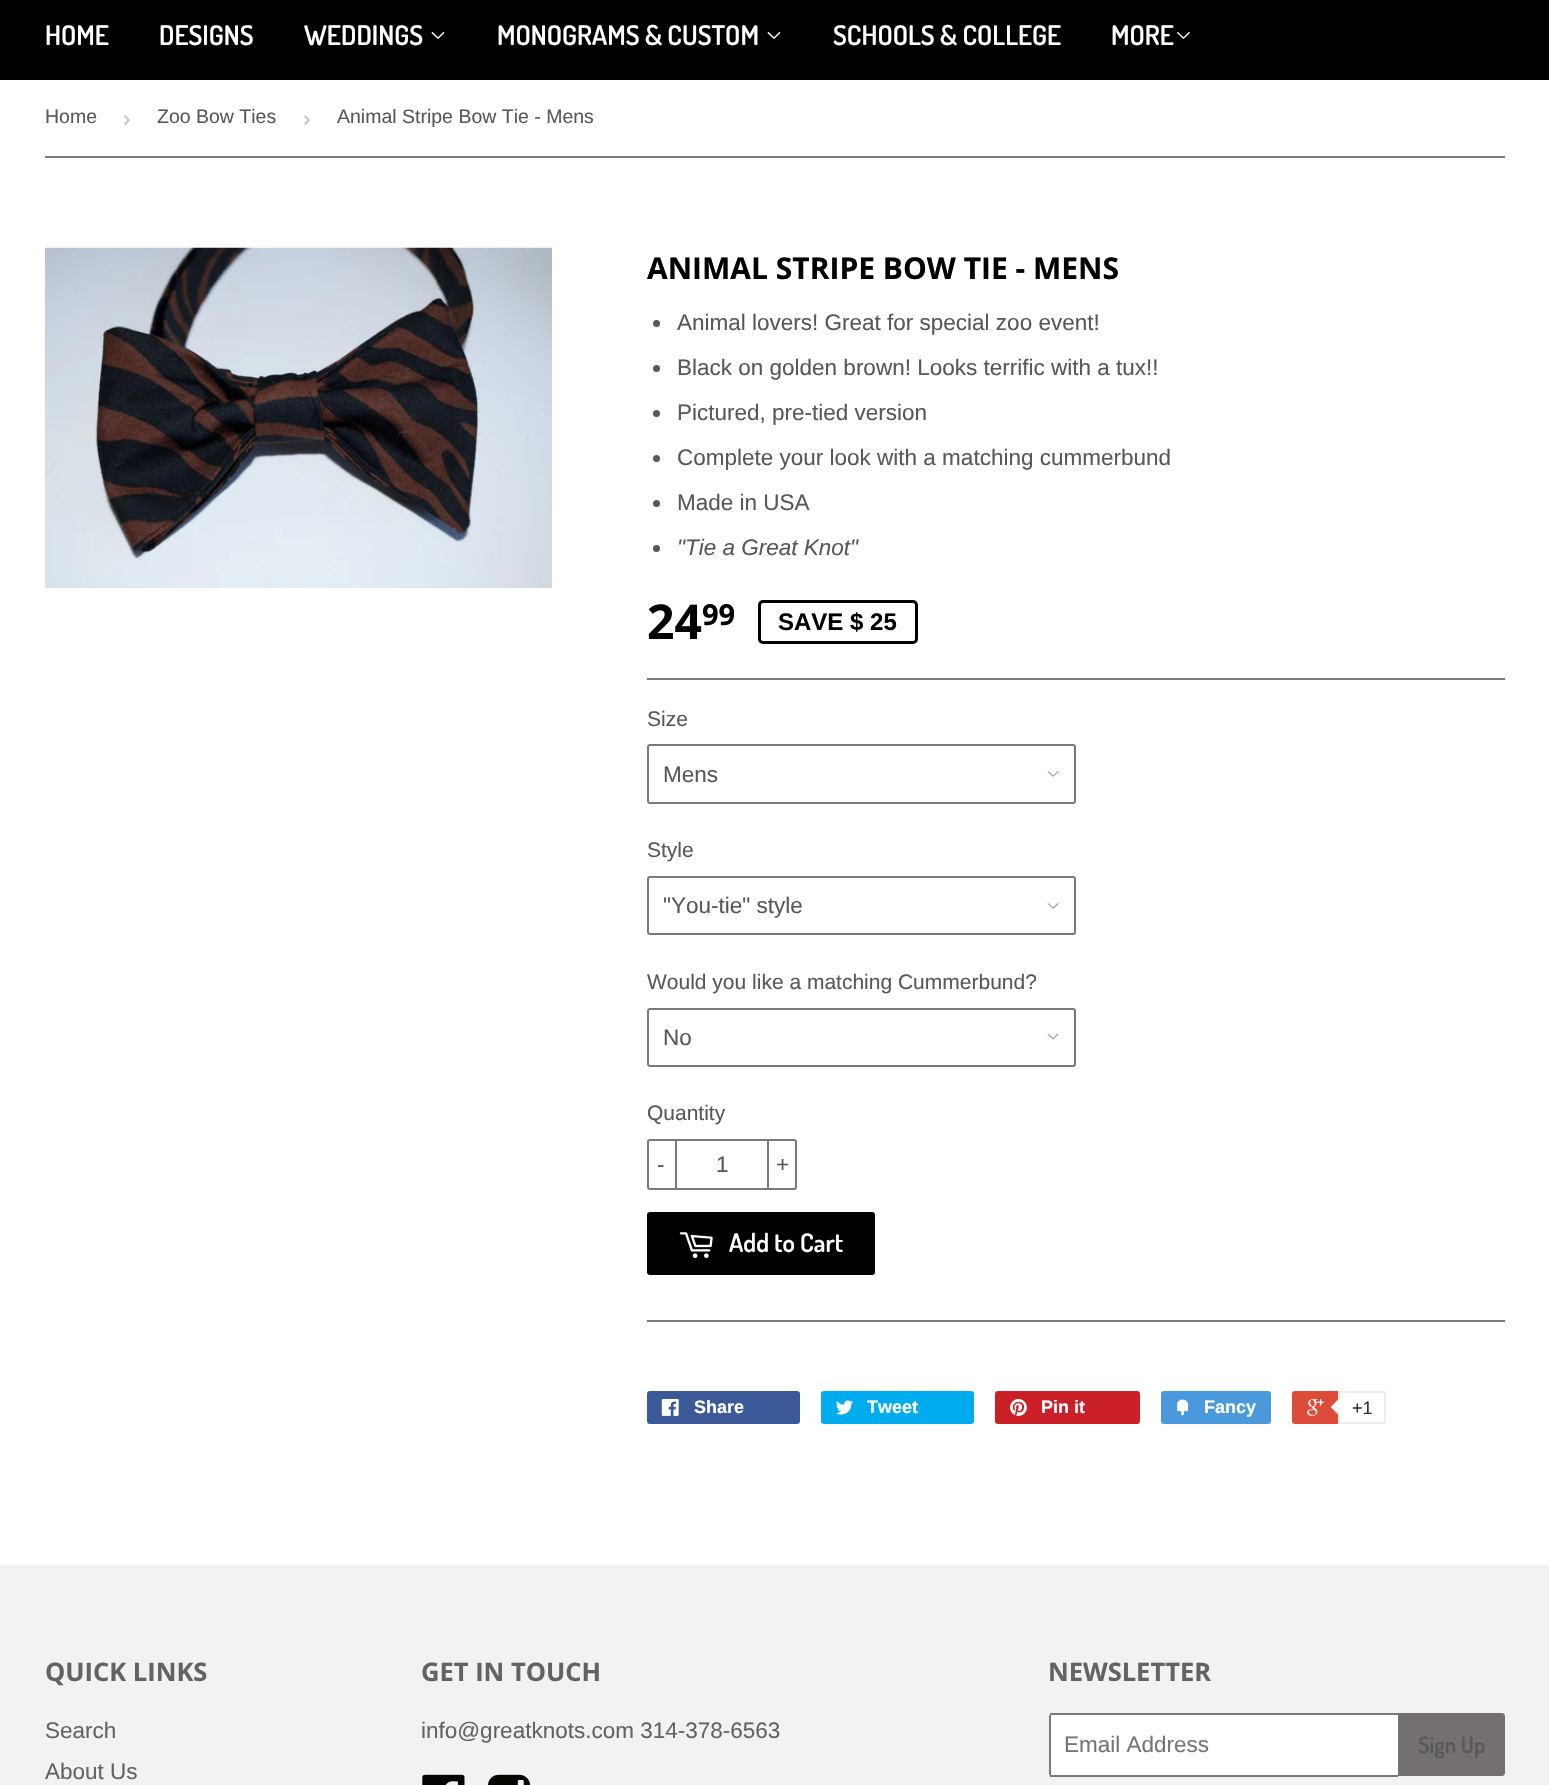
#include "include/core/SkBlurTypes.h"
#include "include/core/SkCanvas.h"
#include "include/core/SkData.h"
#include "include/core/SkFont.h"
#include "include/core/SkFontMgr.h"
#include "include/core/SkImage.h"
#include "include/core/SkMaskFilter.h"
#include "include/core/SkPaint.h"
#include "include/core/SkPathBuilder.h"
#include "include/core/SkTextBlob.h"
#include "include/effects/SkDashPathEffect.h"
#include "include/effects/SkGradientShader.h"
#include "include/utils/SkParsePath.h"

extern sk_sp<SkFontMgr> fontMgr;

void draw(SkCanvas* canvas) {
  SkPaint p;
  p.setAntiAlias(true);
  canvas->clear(SK_ColorWHITE);
  p.setColor(SK_ColorBLACK);
  canvas->drawRect(SkRect::MakeLTRB(0, 0, 1549, 80), p);
  canvas->drawImageRect(SkImages::DeferredFromEncodedData(SkData::MakeFromFileName("images/1.png")), SkRect::MakeLTRB(431, 31, 445, 39), SkSamplingOptions());
  canvas->drawImageRect(SkImages::DeferredFromEncodedData(SkData::MakeFromFileName("images/1.png")), SkRect::MakeLTRB(767, 31, 781, 39), SkSamplingOptions());
  canvas->drawImageRect(SkImages::DeferredFromEncodedData(SkData::MakeFromFileName("images/2.png")), SkRect::MakeLTRB(1177, 31, 1190, 39), SkSamplingOptions());
  p.setColor(SkColorSetRGB(122, 120, 120));
  canvas->drawRect(SkRect::MakeLTRB(45, 156, 1505, 158), p);
  canvas->drawImageRect(SkImages::DeferredFromEncodedData(SkData::MakeFromFileName("images/3.png")), SkRect::MakeLTRB(45, 247, 552, 588), SkSamplingOptions());
  p.setColor(SkColorSetRGB(88, 88, 88));
  canvas->drawCircle(656.5f, 323.5f, 3.5f, p);
  canvas->drawCircle(656.5f, 368.5f, 3.5f, p);
  canvas->drawCircle(656.5f, 413.5f, 3.5f, p);
  canvas->drawCircle(656.5f, 458.5f, 3.5f, p);
  canvas->drawCircle(656.5f, 503.5f, 3.5f, p);
  canvas->drawCircle(656.5f, 548.5f, 3.5f, p);
  p.setStyle(SkPaint::kStroke_Style);
  p.setStrokeWidth(3);
  p.setColor(SK_ColorBLACK);
  canvas->drawRoundRect(SkRect::MakeLTRB(759.5f, 601.5f, 916.5f, 642.5f), 3.5f, 3.5f, p);
  p.setStyle(SkPaint::kFill_Style);
  p.setColor(SkColorSetRGB(122, 120, 120));
  canvas->drawRect(SkRect::MakeLTRB(647, 678, 1505, 680), p);
  canvas->drawImageRect(SkImages::DeferredFromEncodedData(SkData::MakeFromFileName("images/4.png")), SkRect::MakeLTRB(1047, 771, 1059, 777), SkSamplingOptions());
  p.setStyle(SkPaint::kStroke_Style);
  p.setStrokeWidth(2);
  canvas->drawRoundRect(SkRect::MakeLTRB(648, 745, 1075, 803), 2, 2, p);
  canvas->drawImageRect(SkImages::DeferredFromEncodedData(SkData::MakeFromFileName("images/4.png")), SkRect::MakeLTRB(1047, 903, 1059, 909), SkSamplingOptions());
  canvas->drawRoundRect(SkRect::MakeLTRB(648, 877, 1075, 934), 2, 2, p);
  canvas->drawImageRect(SkImages::DeferredFromEncodedData(SkData::MakeFromFileName("images/5.png")), SkRect::MakeLTRB(1047, 1034, 1059, 1040), SkSamplingOptions());
  canvas->drawRoundRect(SkRect::MakeLTRB(648, 1009, 1075, 1066), 2, 2, p);
  canvas->drawRoundRect(SkRect::MakeLTRB(648, 1140, 796, 1189), 2, 2, p);
  p.setStyle(SkPaint::kFill_Style);
  canvas->drawRect(SkRect::MakeLTRB(675, 1139, 677, 1190), p);
  canvas->drawRect(SkRect::MakeLTRB(767, 1139, 769, 1190), p);
  p.setColor(SK_ColorBLACK);
  canvas->drawRoundRect(SkRect::MakeLTRB(647, 1212, 875, 1275), 3, 3, p);
  canvas->drawImageRect(SkImages::DeferredFromEncodedData(SkData::MakeFromFileName("images/6.png")), SkRect::MakeLTRB(679, 1232, 713, 1258), SkSamplingOptions());
  p.setColor(SkColorSetRGB(122, 120, 120));
  canvas->drawRect(SkRect::MakeLTRB(647, 1320, 1505, 1322), p);
  p.setColor(SkColorSetRGB(59, 89, 152));
  canvas->drawRoundRect(SkRect::MakeLTRB(647, 1391, 800, 1424), 3, 3, p);
  canvas->drawImageRect(SkImages::DeferredFromEncodedData(SkData::MakeFromFileName("images/7.png")), SkRect::MakeLTRB(661, 1399, 679, 1416), SkSamplingOptions());
  p.setColor(SkColorSetRGB(0, 172, 237));
  canvas->drawRoundRect(SkRect::MakeLTRB(821, 1391, 974, 1424), 3, 3, p);
  canvas->drawImageRect(SkImages::DeferredFromEncodedData(SkData::MakeFromFileName("images/8.png")), SkRect::MakeLTRB(836, 1400, 853, 1415), SkSamplingOptions());
  p.setColor(SkColorSetRGB(203, 32, 39));
  canvas->drawRoundRect(SkRect::MakeLTRB(995, 1391, 1140, 1424), 3, 3, p);
  canvas->drawImageRect(SkImages::DeferredFromEncodedData(SkData::MakeFromFileName("images/9.png")), SkRect::MakeLTRB(1010, 1399, 1027, 1416), SkSamplingOptions());
  p.setColor(SkColorSetRGB(73, 153, 220));
  canvas->drawRoundRect(SkRect::MakeLTRB(1161, 1391, 1271, 1424), 3, 3, p);
  canvas->drawImageRect(SkImages::DeferredFromEncodedData(SkData::MakeFromFileName("images/10.png")), SkRect::MakeLTRB(1177, 1399, 1189, 1416), SkSamplingOptions());
  p.setColor(SkColorSetRGB(221, 75, 57));
  canvas->drawRoundRect(SkRect::MakeLTRB(1292, 1391, 1383, 1424), 3, 3, p);
  canvas->drawImageRect(SkImages::DeferredFromEncodedData(SkData::MakeFromFileName("images/11.png")), SkRect::MakeLTRB(1307, 1399, 1324, 1416), SkSamplingOptions());
  p.setColor(SK_ColorWHITE);
  canvas->drawPath(SkPathBuilder().moveTo(1339, 1392).lineTo(1383, 1392).cubicTo(1384, 1392, 1385, 1393, 1385, 1394).lineTo(1385, 1421).cubicTo(1385, 1422, 1384, 1423, 1383, 1423).lineTo(1339, 1423).close().detach(), p);
  p.setStyle(SkPaint::kStroke_Style);
  p.setColor(SkColorSetRGB(236, 236, 236));
  canvas->drawPath(SkPathBuilder().moveTo(1339, 1392).lineTo(1383, 1392).cubicTo(1384, 1392, 1385, 1393, 1385, 1394).lineTo(1385, 1421).cubicTo(1385, 1422, 1384, 1423, 1383, 1423).lineTo(1339, 1423).close().detach(), p);
  p.setStyle(SkPaint::kFill_Style);
  canvas->drawPath(SkPathBuilder().moveTo(1339.5f, 1398).lineTo(1339.5f, 1416).lineTo(1330.5f, 1407).close().detach(), p);
  p.setColor(SK_ColorWHITE);
  canvas->drawPath(SkPathBuilder().moveTo(1341, 1398).lineTo(1341, 1416).lineTo(1332, 1407).close().detach(), p);
  p.setColor(SkColorSetRGB(242, 242, 242));
  canvas->drawRect(SkRect::MakeLTRB(0, 1565, 1549, 1785), p);
  canvas->drawImageRect(SkImages::DeferredFromEncodedData(SkData::MakeFromFileName("images/12.png")), SkRect::MakeLTRB(422, 1774, 465, 1785), SkSamplingOptions());
  canvas->drawImageRect(SkImages::DeferredFromEncodedData(SkData::MakeFromFileName("images/13.png")), SkRect::MakeLTRB(488, 1774, 530, 1785), SkSamplingOptions());
  p.setColor(SK_ColorWHITE);
  canvas->drawPath(SkPathBuilder().moveTo(1052, 1713).lineTo(1398, 1713).lineTo(1398, 1776).lineTo(1052, 1776).cubicTo(1050.5f, 1776, 1049, 1774.5f, 1049, 1773).lineTo(1049, 1716).cubicTo(1049, 1714.5f, 1050.5f, 1713, 1052, 1713).close().detach(), p);
  p.setColor(SkColorSetRGB(122, 120, 120));
  canvas->drawRect(SkRect::MakeLTRB(1050, 1713, 1398, 1715), p);
  canvas->drawRect(SkRect::MakeLTRB(1050, 1775, 1398, 1777), p);
  canvas->drawRect(SkRect::MakeLTRB(1049, 1715, 1051, 1775), p);
  p.setColor(SkColorSetRGB(117, 112, 112));
  canvas->drawPath(SkPathBuilder().moveTo(1398, 1713).lineTo(1502, 1713).cubicTo(1503.5f, 1713, 1505, 1714.5f, 1505, 1716).lineTo(1505, 1773).cubicTo(1505, 1774.5f, 1503.5f, 1776, 1502, 1776).lineTo(1398, 1776).close().detach(), p);
  SkFont font1(fontMgr->matchFamilyStyle("Dosis", SkFontStyle(600, SkFontStyle::kNormal_Width, SkFontStyle::kUpright_Slant)), 27);
  font1.setSubpixel(true);
  p.setColor(SK_ColorWHITE);
  canvas->drawString("HOME", 45, 45, font1, p);
  canvas->drawString("DESIGNS", 159, 45, font1, p);
  canvas->drawString("WEDDINGS", 304, 45, font1, p);
  canvas->drawString("MONOGRAMS & CUSTOM", 497, 45, font1, p);
  canvas->drawString("SCHOOLS & COLLEGE", 833, 45, font1, p);
  canvas->drawString("MORE", 1111, 45, font1, p);
  SkFont font2(fontMgr->matchFamilyStyle("Liberation Sans", SkFontStyle::Normal()), 19.5f);
  font2.setSubpixel(true);
  p.setColor(SkColorSetRGB(88, 88, 88));
  canvas->drawString("Home", 45, 123, font2, p);
  SkFont font3(fontMgr->matchFamilyStyle("Liberation Sans", SkFontStyle::Normal()), 22.5f);
  font3.setSubpixel(true);
  p.setColor(SkColorSetRGB(187, 187, 187));
  canvas->drawString("›", 123, 126, font3, p);
  p.setColor(SkColorSetRGB(88, 88, 88));
  canvas->drawString("Zoo Bow Ties", 157, 123, font2, p);
  p.setColor(SkColorSetRGB(187, 187, 187));
  canvas->drawString("›", 303, 126, font3, p);
  p.setColor(SkColorSetRGB(88, 88, 88));
  canvas->drawString("Animal Stripe Bow Tie - Mens", 337, 123, font2, p);
  SkFont font4(fontMgr->matchFamilyStyle("Open Sans", SkFontStyle::Bold()), 30);
  font4.setSubpixel(true);
  p.setColor(SK_ColorBLACK);
  canvas->drawString("ANIMAL STRIPE BOW TIE - MENS", 647, 279, font4, p);
  p.setColor(SkColorSetRGB(88, 88, 88));
  canvas->drawString("Animal lovers! Great for special zoo event!", 677, 330, font3, p);
  canvas->drawString("Black on golden brown! Looks terrific with a tux!!", 677, 375, font3, p);
  canvas->drawString("Pictured, pre-tied version", 677, 420, font3, p);
  canvas->drawString("Complete your look with a matching cummerbund", 677, 465, font3, p);
  canvas->drawString("Made in USA", 677, 510, font3, p);
  SkFont font5(fontMgr->matchFamilyStyle("Liberation Sans", SkFontStyle::Italic()), 22.5f);
  font5.setSubpixel(true);
  canvas->drawString("\"Tie a Great Knot\"", 677, 555, font5, p);
  SkFont font6(fontMgr->matchFamilyStyle("Open Sans", SkFontStyle::Bold()), 48);
  font6.setSubpixel(true);
  p.setColor(SK_ColorBLACK);
  canvas->drawString("24", 647, 639, font6, p);
  SkFont font7(fontMgr->matchFamilyStyle("Open Sans", SkFontStyle::Bold()), 29);
  font7.setSubpixel(true);
  canvas->drawString("99", 702, 625, font7, p);
  SkFont font8(fontMgr->matchFamilyStyle("Liberation Sans", SkFontStyle::Bold()), 24);
  font8.setSubpixel(true);
  canvas->drawString("SAVE $ 25", 778, 630, font8, p);
  SkFont font9(fontMgr->matchFamilyStyle("Liberation Sans", SkFontStyle::Normal()), 21);
  font9.setSubpixel(true);
  p.setColor(SkColorSetRGB(88, 88, 88));
  canvas->drawString("Size", 647, 726, font9, p);
  canvas->drawString("Mens", 663, 782, font3, p);
  canvas->drawString("Style", 647, 857, font9, p);
  canvas->drawString("\"You-tie\" style", 663, 913, font3, p);
  canvas->drawString("Would you like a matching Cummerbund?", 647, 989, font9, p);
  canvas->drawString("No", 663, 1045, font3, p);
  canvas->drawString("Quantity", 647, 1120, font9, p);
  canvas->drawString("-", 657, 1172, font3, p);
  canvas->drawString("1", 716, 1172, font3, p);
  canvas->drawString("+", 776, 1172, font3, p);
  SkFont font10(fontMgr->matchFamilyStyle("Dosis", SkFontStyle(600, SkFontStyle::kNormal_Width, SkFontStyle::kUpright_Slant)), 25.5f);
  font10.setSubpixel(true);
  p.setColor(SK_ColorWHITE);
  canvas->drawString("Add to Cart", 729, 1252, font10, p);
  SkFont font11(fontMgr->matchFamilyStyle("Liberation Sans", SkFontStyle::Bold()), 18);
  font11.setSubpixel(true);
  canvas->drawString("Share", 694, 1413, font11, p);
  canvas->drawString("Tweet", 867, 1413, font11, p);
  canvas->drawString("Pin it", 1041, 1413, font11, p);
  canvas->drawString("Fancy", 1204, 1413, font11, p);
  SkFont font12(fontMgr->matchFamilyStyle("Liberation Sans", SkFontStyle::Normal()), 18);
  font12.setSubpixel(true);
  p.setColor(SkColorSetRGB(51, 51, 51));
  canvas->drawString("+1", 1352, 1414, font12, p);
  SkFont font13(fontMgr->matchFamilyStyle("Open Sans", SkFontStyle::Bold()), 25.5f);
  font13.setSubpixel(true);
  p.setColor(SkColorSetRGB(99, 99, 99));
  canvas->drawString("QUICK LINKS", 45, 1681, font13, p);
  canvas->drawString("Search", 45, 1738, font3, p);
  canvas->drawString("About Us", 45, 1779, font3, p);
  canvas->drawString("GET IN TOUCH", 421, 1681, font13, p);
  canvas->drawString("info@greatknots.com 314-378-6563", 421, 1738, font3, p);
  canvas->drawString("NEWSLETTER", 1048, 1681, font13, p);
  p.setColor(SkColorSetRGB(117, 117, 117));
  canvas->drawString("Email Address", 1064, 1752, font3, p);
  SkFont font14(fontMgr->matchFamilyStyle("Dosis", SkFontStyle(600, SkFontStyle::kNormal_Width, SkFontStyle::kUpright_Slant)), 22.5f);
  font14.setSubpixel(true);
  p.setColor(SkColorSetRGB(88, 88, 88));
  canvas->drawString("Sign Up", 1418, 1753, font14, p);
}
